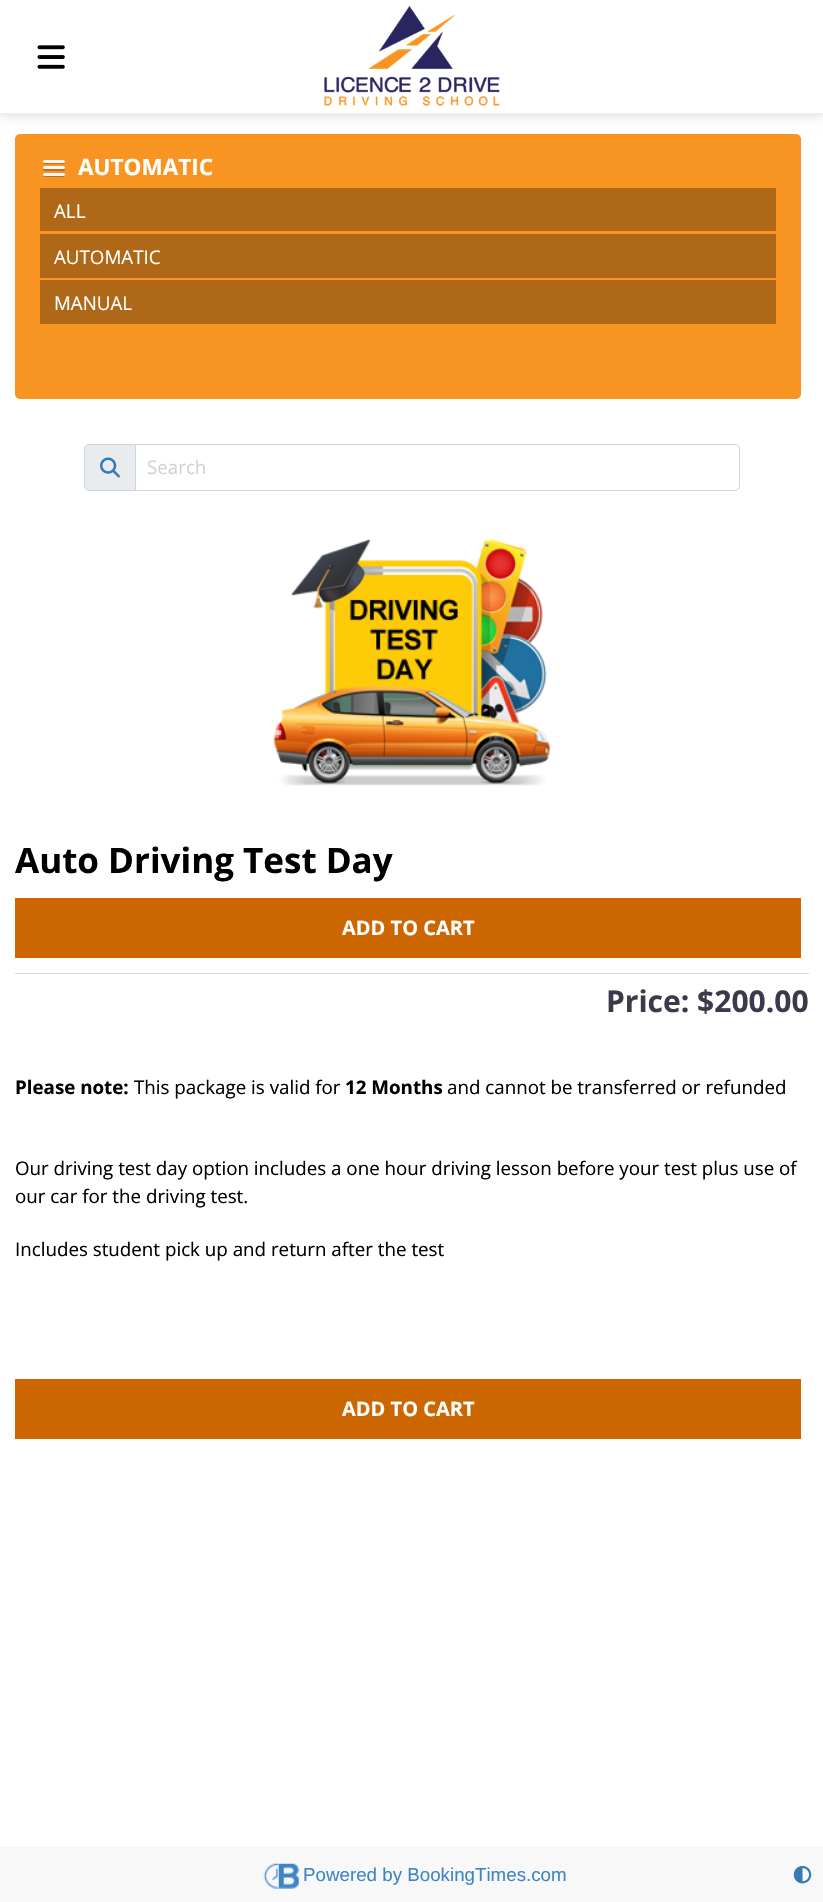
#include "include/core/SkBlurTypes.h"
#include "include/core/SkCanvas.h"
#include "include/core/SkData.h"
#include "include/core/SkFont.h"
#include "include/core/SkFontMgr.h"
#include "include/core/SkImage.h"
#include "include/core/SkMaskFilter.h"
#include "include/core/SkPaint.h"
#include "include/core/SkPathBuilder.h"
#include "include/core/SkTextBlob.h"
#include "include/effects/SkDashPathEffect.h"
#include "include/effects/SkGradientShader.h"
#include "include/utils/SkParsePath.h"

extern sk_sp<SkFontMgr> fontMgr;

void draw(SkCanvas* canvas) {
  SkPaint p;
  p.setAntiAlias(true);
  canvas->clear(SK_ColorWHITE);
  p.setColor(SkColorSetARGB(46, 0, 0, 0));
  p.setMaskFilter(SkMaskFilter::MakeBlur(kNormal_SkBlurStyle, 6));
  canvas->drawRect(SkRect::MakeLTRB(0, 0, 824, 114), p);
  p.setMaskFilter(nullptr);
  p.setColor(SkColorSetRGB(236, 238, 241));
  canvas->drawRect(SkRect::MakeLTRB(0, 113, 823, 114), p);
  p.setColor(SK_ColorWHITE);
  canvas->drawRect(SkRect::MakeLTRB(0, 0, 823, 113), p);
  canvas->drawImageRect(SkImages::DeferredFromEncodedData(SkData::MakeFromFileName("images/1.png")), SkRect::MakeLTRB(37, 45, 65, 69), SkSamplingOptions());
  canvas->drawImageRect(SkImages::DeferredFromEncodedData(SkData::MakeFromFileName("images/2.png")), SkRect::MakeLTRB(324, 6, 500, 106), SkSamplingOptions());
  p.setColor(SkColorSetRGB(248, 149, 34));
  canvas->drawRoundRect(SkRect::MakeLTRB(15, 134, 801, 399), 5, 5, p);
  p.setColor(SkColorSetRGB(186, 112, 26));
  canvas->drawPath(SkPathBuilder().moveTo(43, 162.5f).cubicTo(42.5f, 164.5f, 46.5f, 164, 47.5f, 164).lineTo(60.5f, 164).cubicTo(61, 164, 66, 164.5f, 65, 162).lineTo(64, 162.5f).cubicTo(62, 162.5f, 43.5f, 162.5f, 43, 162.5f).close().detach(), p);
  p.setColor(SkColorSetRGB(245, 245, 245));
  canvas->drawRoundRect(SkRect::MakeLTRB(43, 160, 65, 163), 1.5f, 1.5f, p);
  p.setColor(SkColorSetRGB(186, 112, 26));
  canvas->drawPath(SkPathBuilder().moveTo(43.5f, 168.5f).cubicTo(41.5f, 171.5f, 47, 171, 47.5f, 171).lineTo(54, 171).cubicTo(56, 171, 64, 171.5f, 64.5f, 170.5f).cubicTo(65, 170, 65, 169, 64.5f, 168.5f).cubicTo(64, 169, 44.5f, 169, 43.5f, 168.5f).close().detach(), p);
  p.setColor(SkColorSetRGB(245, 245, 245));
  canvas->drawRoundRect(SkRect::MakeLTRB(43, 166, 65, 169), 1.5f, 1.5f, p);
  p.setColor(SkColorSetRGB(186, 112, 26));
  canvas->drawPath(SkPathBuilder().moveTo(43, 175).cubicTo(42, 177.5f, 47, 177, 47.5f, 177).lineTo(60.5f, 177).cubicTo(60.5f, 177, 67, 177.5f, 64.5f, 174.5f).lineTo(64, 175).close().detach(), p);
  p.setColor(SkColorSetRGB(245, 245, 245));
  canvas->drawRoundRect(SkRect::MakeLTRB(43, 173, 65, 176), 1.5f, 1.5f, p);
  p.setColor(SkColorSetRGB(174, 104, 24));
  canvas->drawRect(SkRect::MakeLTRB(40, 188, 776, 231), p);
  canvas->drawRect(SkRect::MakeLTRB(40, 234, 776, 278), p);
  canvas->drawRect(SkRect::MakeLTRB(40, 280, 776, 324), p);
  p.setColor(SkColorSetRGB(233, 236, 239));
  canvas->drawPath(SkPathBuilder().moveTo(89, 444.5f).lineTo(135.5f, 444.5f).lineTo(135.5f, 490.5f).lineTo(89, 490.5f).cubicTo(86.5f, 490.5f, 84.5f, 488.5f, 84.5f, 486).lineTo(84.5f, 449).cubicTo(84.5f, 446.5f, 86.5f, 444.5f, 89, 444.5f).close().detach(), p);
  p.setStyle(SkPaint::kStroke_Style);
  p.setStrokeWidth(1);
  p.setColor(SkColorSetRGB(206, 212, 218));
  canvas->drawPath(SkPathBuilder().moveTo(89, 444.5f).lineTo(135.5f, 444.5f).lineTo(135.5f, 490.5f).lineTo(89, 490.5f).cubicTo(86.5f, 490.5f, 84.5f, 488.5f, 84.5f, 486).lineTo(84.5f, 449).cubicTo(84.5f, 446.5f, 86.5f, 444.5f, 89, 444.5f).close().detach(), p);
  canvas->drawImageRect(SkImages::DeferredFromEncodedData(SkData::MakeFromFileName("images/3.png")), SkRect::MakeLTRB(100, 457, 120, 478), SkSamplingOptions());
  canvas->drawPath(SkPathBuilder().moveTo(135.5f, 444.5f).lineTo(735, 444.5f).cubicTo(737.5f, 444.5f, 739.5f, 446.5f, 739.5f, 449).lineTo(739.5f, 486).cubicTo(739.5f, 488.5f, 737.5f, 490.5f, 735, 490.5f).lineTo(135.5f, 490.5f).close().detach(), p);
  canvas->drawImageRect(SkImages::DeferredFromEncodedData(SkData::MakeFromFileName("images/4.png")), SkRect::MakeLTRB(273, 538, 551, 786), SkSamplingOptions());
  p.setStyle(SkPaint::kFill_Style);
  p.setColor(SkColorSetRGB(204, 102, 0));
  canvas->drawRect(SkRect::MakeLTRB(15, 898, 801, 958), p);
  p.setColor(SkColorSetRGB(217, 217, 217));
  canvas->drawRect(SkRect::MakeLTRB(15, 973, 809, 974), p);
  p.setColor(SkColorSetRGB(204, 102, 0));
  canvas->drawRect(SkRect::MakeLTRB(15, 1379, 801, 1439), p);
  p.setColor(SkColorSetRGB(248, 248, 248));
  canvas->drawRect(SkRect::MakeLTRB(0, 1846, 823, 1902), p);
  canvas->drawImageRect(SkImages::DeferredFromEncodedData(SkData::MakeFromFileName("images/5.png")), SkRect::MakeLTRB(263, 1863, 299, 1889), SkSamplingOptions());
  canvas->drawImageRect(SkImages::DeferredFromEncodedData(SkData::MakeFromFileName("images/6.png")), SkRect::MakeLTRB(793, 1865, 812, 1884), SkSamplingOptions());
  SkFont font1(fontMgr->matchFamilyStyle("Open Sans", SkFontStyle::Bold()), 22.5f);
  font1.setSubpixel(true);
  p.setColor(SK_ColorWHITE);
  canvas->drawString("AUTOMATIC", 78, 175, font1, p);
  SkFont font2(fontMgr->matchFamilyStyle("Open Sans", SkFontStyle::Normal()), 18.75f);
  font2.setSubpixel(true);
  canvas->drawString("ALL", 54, 218, font2, p);
  canvas->drawString("AUTOMATIC", 54, 264, font2, p);
  canvas->drawString("MANUAL", 54, 310, font2, p);
  p.setColor(SkColorSetRGB(211, 211, 211));
  canvas->drawString("Search", 147, 474, font2, p);
  SkFont font3(fontMgr->matchFamilyStyle("Open Sans", SkFontStyle::Bold()), 35);
  font3.setSubpixel(true);
  p.setColor(SK_ColorBLACK);
  canvas->drawString("Auto Driving Test Day", 15, 873, font3, p);
  SkFont font4(fontMgr->matchFamilyStyle("Open Sans", SkFontStyle::Bold()), 20);
  font4.setSubpixel(true);
  p.setColor(SK_ColorWHITE);
  canvas->drawString("ADD TO CART", 342, 935, font4, p);
  SkFont font5(fontMgr->matchFamilyStyle("Open Sans", SkFontStyle::Bold()), 30);
  font5.setSubpixel(true);
  p.setColor(SkColorSetRGB(58, 58, 76));
  canvas->drawString("Price: $200.00", 606, 1012, font5, p);
  SkFont font6(fontMgr->matchFamilyStyle("Open Sans", SkFontStyle::Bold()), 18.75f);
  font6.setSubpixel(true);
  p.setColor(SK_ColorBLACK);
  canvas->drawString("Please note:", 15, 1094, font6, p);
  canvas->drawString("This package is valid for", 134, 1094, font2, p);
  canvas->drawString("12 Months", 345, 1094, font6, p);
  canvas->drawString("and cannot be transferred or refunded", 447, 1094, font2, p);
  canvas->drawString("Our driving test day option includes a one hour driving lesson before your test plus use of", 15, 1175, font2, p);
  canvas->drawString("our car for the driving test.", 15, 1203, font2, p);
  canvas->drawString("Includes student pick up and return after the test", 15, 1256, font2, p);
  p.setColor(SK_ColorWHITE);
  canvas->drawString("ADD TO CART", 342, 1416, font4, p);
  SkFont font7(fontMgr->matchFamilyStyle("Liberation Sans", SkFontStyle::Normal()), 18.75f);
  font7.setSubpixel(true);
  p.setColor(SkColorSetRGB(63, 133, 198));
  canvas->drawString("Powered by BookingTimes.com", 303, 1881, font7, p);
}
